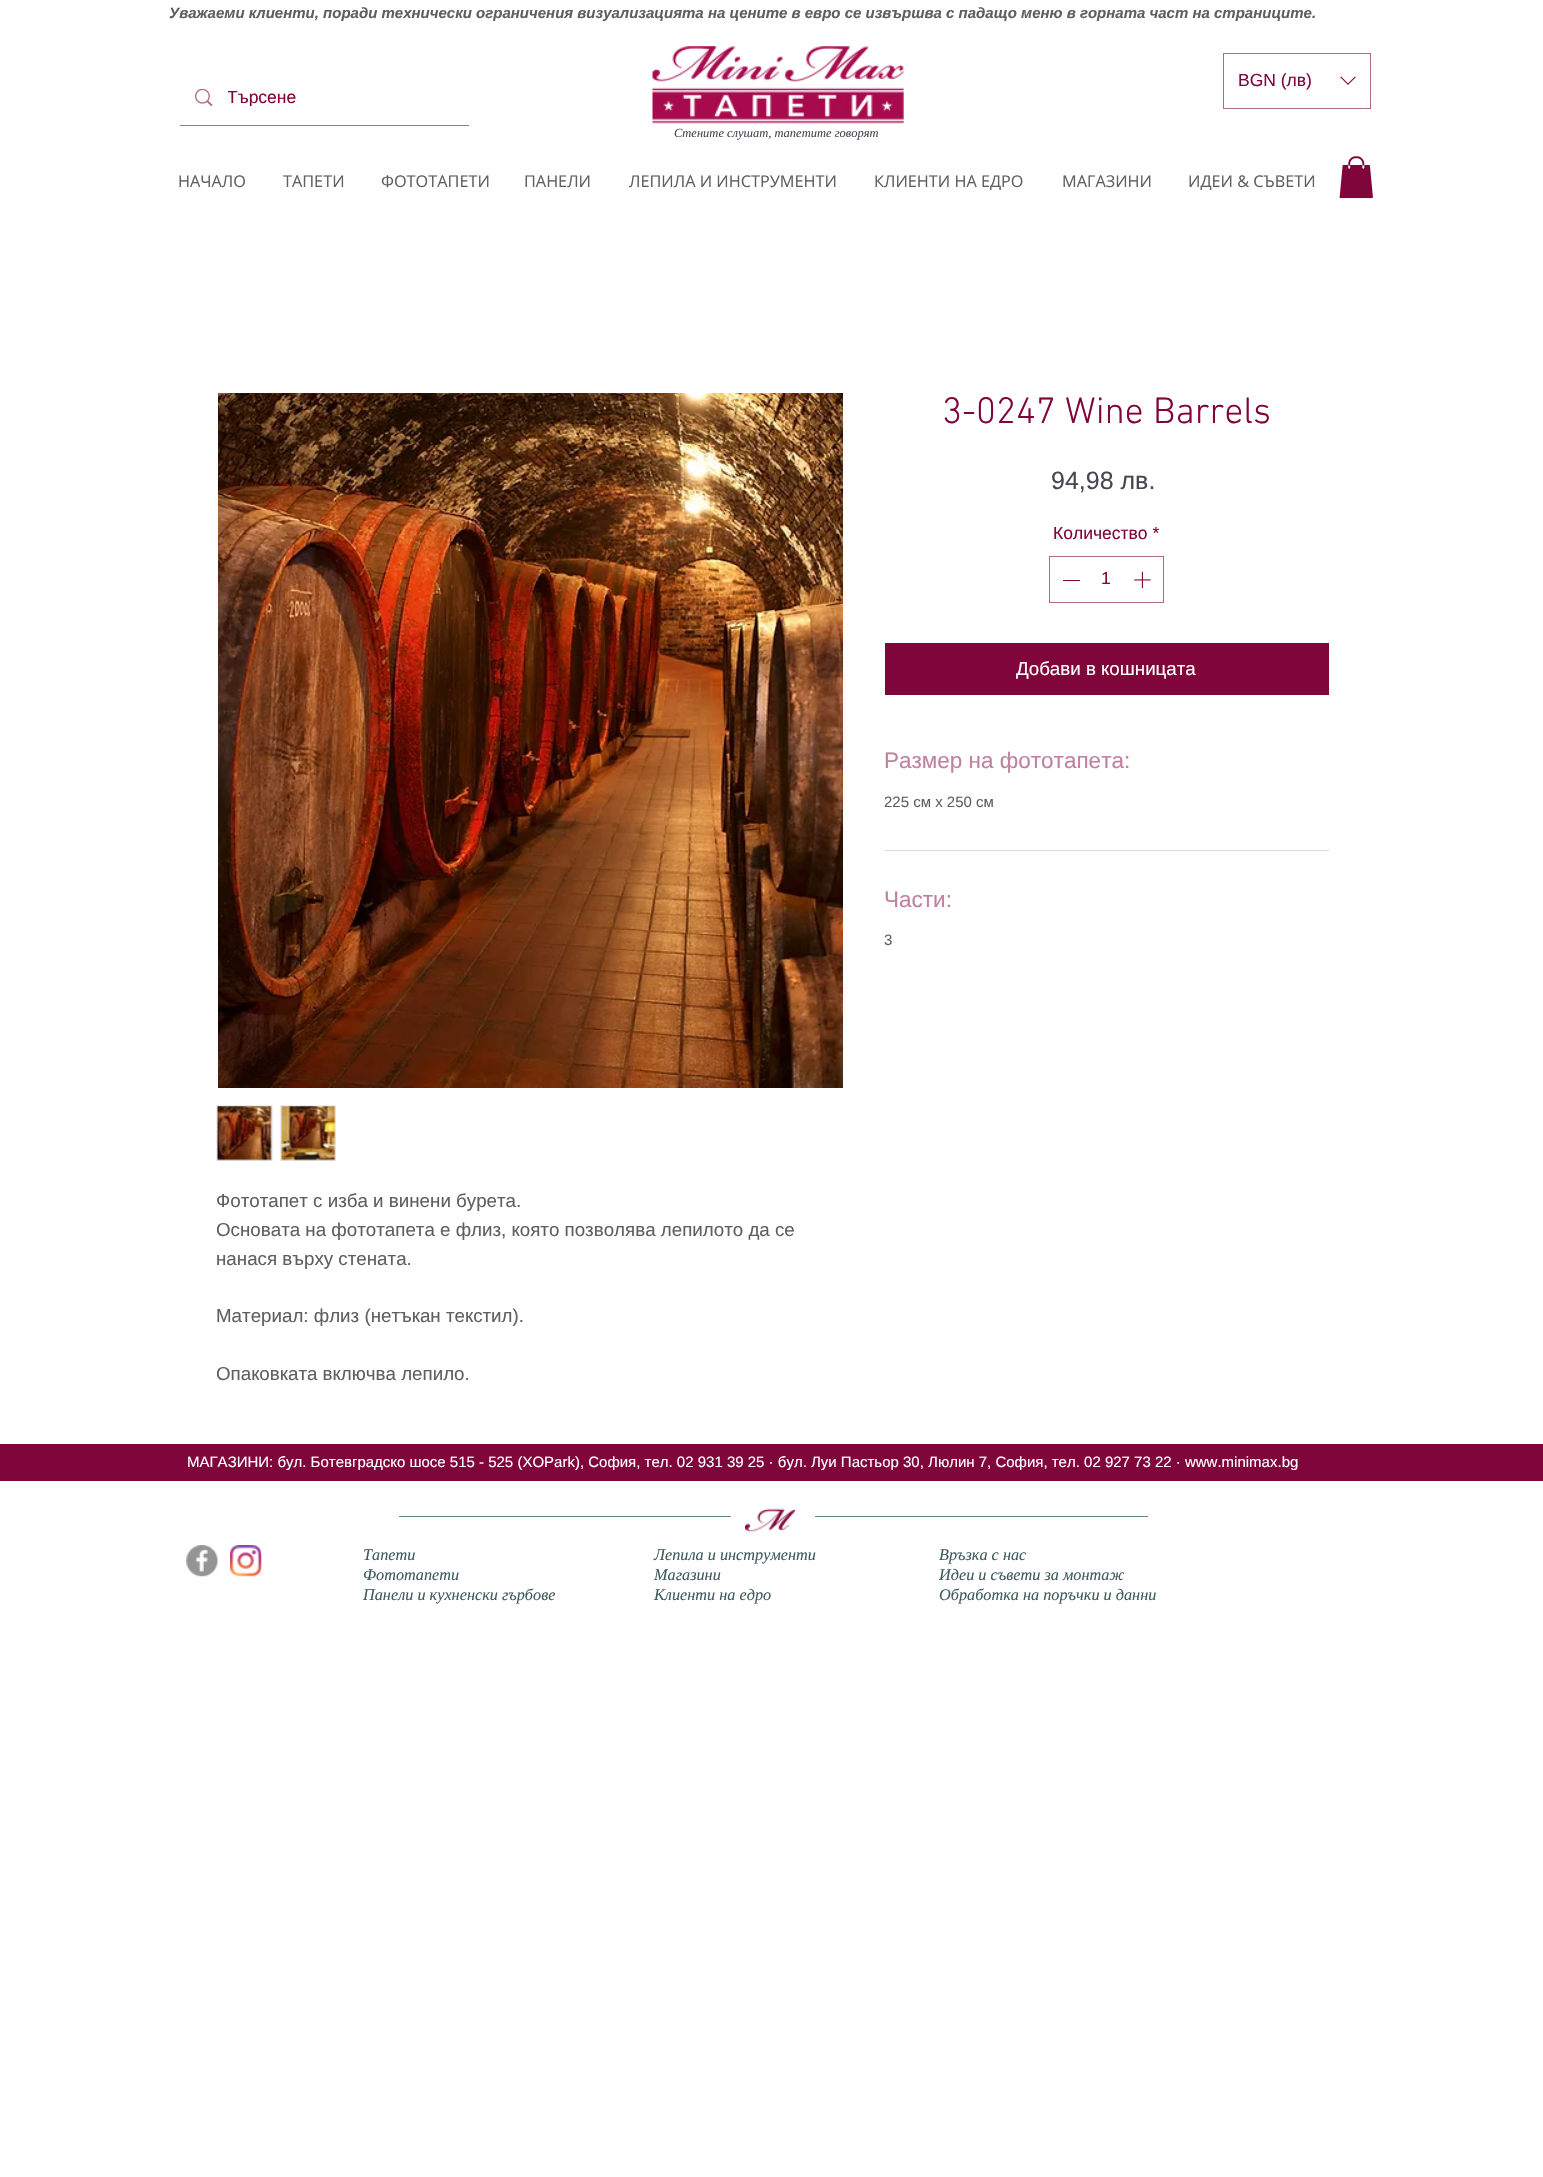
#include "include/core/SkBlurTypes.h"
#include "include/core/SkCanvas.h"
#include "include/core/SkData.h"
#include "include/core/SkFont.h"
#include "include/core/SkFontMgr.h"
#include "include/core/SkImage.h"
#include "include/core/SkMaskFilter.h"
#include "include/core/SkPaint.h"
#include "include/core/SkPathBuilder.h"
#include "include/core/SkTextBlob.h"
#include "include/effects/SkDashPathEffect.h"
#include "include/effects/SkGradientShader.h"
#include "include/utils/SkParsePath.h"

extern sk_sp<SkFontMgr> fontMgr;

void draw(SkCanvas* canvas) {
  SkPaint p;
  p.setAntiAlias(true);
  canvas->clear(SK_ColorWHITE);
  p.setStyle(SkPaint::kStroke_Style);
  p.setStrokeWidth(1);
  p.setColor(SkColorSetRGB(179, 105, 137));
  canvas->drawRect(SkRect::MakeLTRB(1223.5f, 53.5f, 1370.5f, 108.5f), p);
  canvas->drawImageRect(SkImages::DeferredFromEncodedData(SkData::MakeFromFileName("images/1.png")), SkRect::MakeLTRB(1340, 76, 1356, 85), SkSamplingOptions());
  p.setStyle(SkPaint::kFill_Style);
  canvas->drawRect(SkRect::MakeLTRB(180, 125, 469, 126), p);
  canvas->drawImageRect(SkImages::DeferredFromEncodedData(SkData::MakeFromFileName("images/2.png")), SkRect::MakeLTRB(195, 89, 213, 106), SkSamplingOptions());
  canvas->drawImageRect(SkImages::DeferredFromEncodedData(SkData::MakeFromFileName("images/3.png")), SkRect::MakeLTRB(652, 46, 904, 124), SkSamplingOptions());
  canvas->drawImageRect(SkImages::DeferredFromEncodedData(SkData::MakeFromFileName("images/4.png")), SkRect::MakeLTRB(1339, 156, 1373, 199), SkSamplingOptions());
  p.setStyle(SkPaint::kStroke_Style);
  canvas->drawRect(SkRect::MakeLTRB(1049.5f, 556.5f, 1163.5f, 602.5f), p);
  p.setStyle(SkPaint::kFill_Style);
  p.setColor(SkColorSetRGB(128, 5, 58));
  canvas->drawRect(SkRect::MakeLTRB(1063, 580, 1080, 581), p);
  canvas->drawImageRect(SkImages::DeferredFromEncodedData(SkData::MakeFromFileName("images/5.png")), SkRect::MakeLTRB(1134, 571, 1151, 589), SkSamplingOptions());
  canvas->drawRect(SkRect::MakeLTRB(885, 643, 1329, 695), p);
  p.setColor(SkColorSetRGB(213, 221, 222));
  canvas->drawRect(SkRect::MakeLTRB(885, 850, 1329, 851), p);
  canvas->drawImageRect(SkImages::DeferredFromEncodedData(SkData::MakeFromFileName("images/6.png")), SkRect::MakeLTRB(218, 393, 843, 1088), SkSamplingOptions());
  p.setColor(SkColorSetRGB(237, 237, 238));
  canvas->drawRect(SkRect::MakeLTRB(216, 1105, 273, 1161), p);
  canvas->drawImageRect(SkImages::DeferredFromEncodedData(SkData::MakeFromFileName("images/7.png")), SkRect::MakeLTRB(217, 1106, 272, 1161), SkSamplingOptions());
  canvas->drawRect(SkRect::MakeLTRB(280, 1105, 336, 1161), p);
  canvas->drawImageRect(SkImages::DeferredFromEncodedData(SkData::MakeFromFileName("images/8.png")), SkRect::MakeLTRB(280, 1106, 336, 1161), SkSamplingOptions());
  p.setColor(SkColorSetRGB(128, 5, 58));
  canvas->drawRect(SkRect::MakeLTRB(0, 1444, 1543, 1481), p);
  p.setColor(SkColorSetRGB(104, 131, 132));
  canvas->drawRect(SkRect::MakeLTRB(399, 1516, 731, 1517), p);
  canvas->drawImageRect(SkImages::DeferredFromEncodedData(SkData::MakeFromFileName("images/9.png")), SkRect::MakeLTRB(745, 1508, 795, 1532), SkSamplingOptions());
  canvas->drawRect(SkRect::MakeLTRB(815, 1516, 1148, 1517), p);
  canvas->drawImageRect(SkImages::DeferredFromEncodedData(SkData::MakeFromFileName("images/10.png")), SkRect::MakeLTRB(186, 1545, 218, 1577), SkSamplingOptions());
  canvas->drawImageRect(SkImages::DeferredFromEncodedData(SkData::MakeFromFileName("images/11.png")), SkRect::MakeLTRB(230, 1545, 262, 1577), SkSamplingOptions());
  SkFont font1(fontMgr->matchFamilyStyle("Liberation Sans", SkFontStyle::BoldItalic()), 15);
  font1.setSubpixel(true);
  p.setColor(SkColorSetRGB(96, 94, 94));
  canvas->drawString("Уважаеми клиенти, поради технически ограничения визуализацията на цените в евро се извършва с падащо меню в горната част на страниците.", 169, 18, font1, p);
  SkFont font2(fontMgr->matchFamilyStyle("Liberation Sans", SkFontStyle::Normal()), 17.5f);
  font2.setSubpixel(true);
  p.setColor(SkColorSetRGB(128, 5, 58));
  canvas->drawString("BGN (лв)", 1238, 86, font2, p);
  canvas->save();
  canvas->clipRect(SkRect::MakeLTRB(228, 86, 416, 106));
  canvas->drawString("Търсене", 227, 103, font2, p);
  canvas->restore();
  SkFont font3(fontMgr->matchFamilyStyle("Open Sans", SkFontStyle::Normal()), 16.25f);
  font3.setSubpixel(true);
  p.setColor(SkColorSetRGB(96, 94, 94));
  canvas->drawString("НАЧАЛО", 178, 187, font3, p);
  canvas->drawString("ТАПЕТИ", 283, 187, font3, p);
  canvas->drawString("ФОТОТАПЕТИ", 381, 187, font3, p);
  canvas->drawString("ПАНЕЛИ", 524, 187, font3, p);
  canvas->drawString("ЛЕПИЛА И ИНСТРУМЕНТИ", 629, 187, font3, p);
  canvas->drawString("КЛИЕНТИ НА ЕДРО", 874, 187, font3, p);
  canvas->drawString("МАГАЗИНИ", 1062, 187, font3, p);
  canvas->drawString("ИДЕИ & СЪВЕТИ", 1188, 187, font3, p);
  SkFont font4(fontMgr->matchFamilyStyle("Liberation Serif", SkFontStyle::Italic()), 12.5f);
  font4.setSubpixel(true);
  p.setColor(SkColorSetRGB(69, 71, 81));
  canvas->drawString("Стените слушат, тапетите говорят", 674, 137, font4, p);
  SkFont font5(fontMgr->matchFamilyStyle("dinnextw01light", SkFontStyle(300, SkFontStyle::kNormal_Width, SkFontStyle::kUpright_Slant)), 37.5f);
  font5.setSubpixel(true);
  p.setColor(SkColorSetRGB(128, 5, 58));
  canvas->drawString("3-0247 Wine Barrels", 942, 423, font5, p);
  SkFont font6(fontMgr->matchFamilyStyle("Liberation Sans", SkFontStyle::Normal()), 25);
  font6.setSubpixel(true);
  p.setColor(SkColorSetRGB(69, 71, 81));
  canvas->drawString("94,98 лв.", 1051, 489, font6, p);
  p.setColor(SkColorSetRGB(128, 5, 58));
  canvas->drawString("Количество *", 1053, 539, font2, p);
  canvas->drawString("1", 1101, 584, font2, p);
  SkFont font7(fontMgr->matchFamilyStyle("Liberation Sans", SkFontStyle::Normal()), 18.75f);
  font7.setSubpixel(true);
  p.setColor(SK_ColorWHITE);
  canvas->drawString("Добави в кошницата", 1016, 675, font7, p);
  SkFont font8(fontMgr->matchFamilyStyle("Liberation Sans", SkFontStyle::Normal()), 22.5f);
  font8.setSubpixel(true);
  p.setColor(SkColorSetRGB(192, 130, 157));
  canvas->drawString("Размер на фототапета:", 884, 768, font8, p);
  SkFont font9(fontMgr->matchFamilyStyle("Liberation Sans", SkFontStyle::Normal()), 15);
  font9.setSubpixel(true);
  p.setColor(SkColorSetRGB(96, 94, 94));
  canvas->drawString("225 см х 250 см", 884, 807, font9, p);
  p.setColor(SkColorSetRGB(192, 130, 157));
  canvas->drawString("Части:", 884, 907, font8, p);
  p.setColor(SkColorSetRGB(96, 94, 94));
  canvas->drawString("3", 884, 945, font9, p);
  canvas->drawString("Фототапет с изба и винени бурета.", 216, 1207, font7, p);
  canvas->drawString("Основата на фототапета е флиз, която позволява лепилото да се", 216, 1236, font7, p);
  canvas->drawString("нанася върху стената.", 216, 1265, font7, p);
  canvas->drawString("Материал: флиз (нетъкан текстил).", 216, 1322, font7, p);
  canvas->drawString("Опаковката включва лепило.", 216, 1380, font7, p);
  p.setColor(SK_ColorWHITE);
  canvas->drawString("МАГАЗИНИ: бул. Ботевградско шосе 515 - 525 (XOPark), София, тел. 02 931 39 25 · бул. Луи Пастьор 30, Люлин 7, София, тел. 02 927 73 22 · www.minimax.bg", 187, 1467, font9, p);
  SkFont font10(fontMgr->matchFamilyStyle("Liberation Serif", SkFontStyle::Italic()), 16.25f);
  font10.setSubpixel(true);
  p.setColor(SkColorSetRGB(62, 90, 91));
  canvas->drawString("Тапети", 363, 1560, font10, p);
  canvas->drawString("Фототапети", 363, 1580, font10, p);
  canvas->drawString("Панели и кухненски гърбове", 363, 1600, font10, p);
  canvas->drawString("Лепила и инструменти", 654, 1560, font10, p);
  canvas->drawString("Магазини", 654, 1580, font10, p);
  canvas->drawString("Клиенти на едро", 654, 1600, font10, p);
  canvas->drawString("Връзка с нас", 939, 1560, font10, p);
  canvas->drawString("Идеи и съвети за монтаж", 939, 1580, font10, p);
  canvas->drawString("Обработка на поръчки и данни", 939, 1600, font10, p);
}
